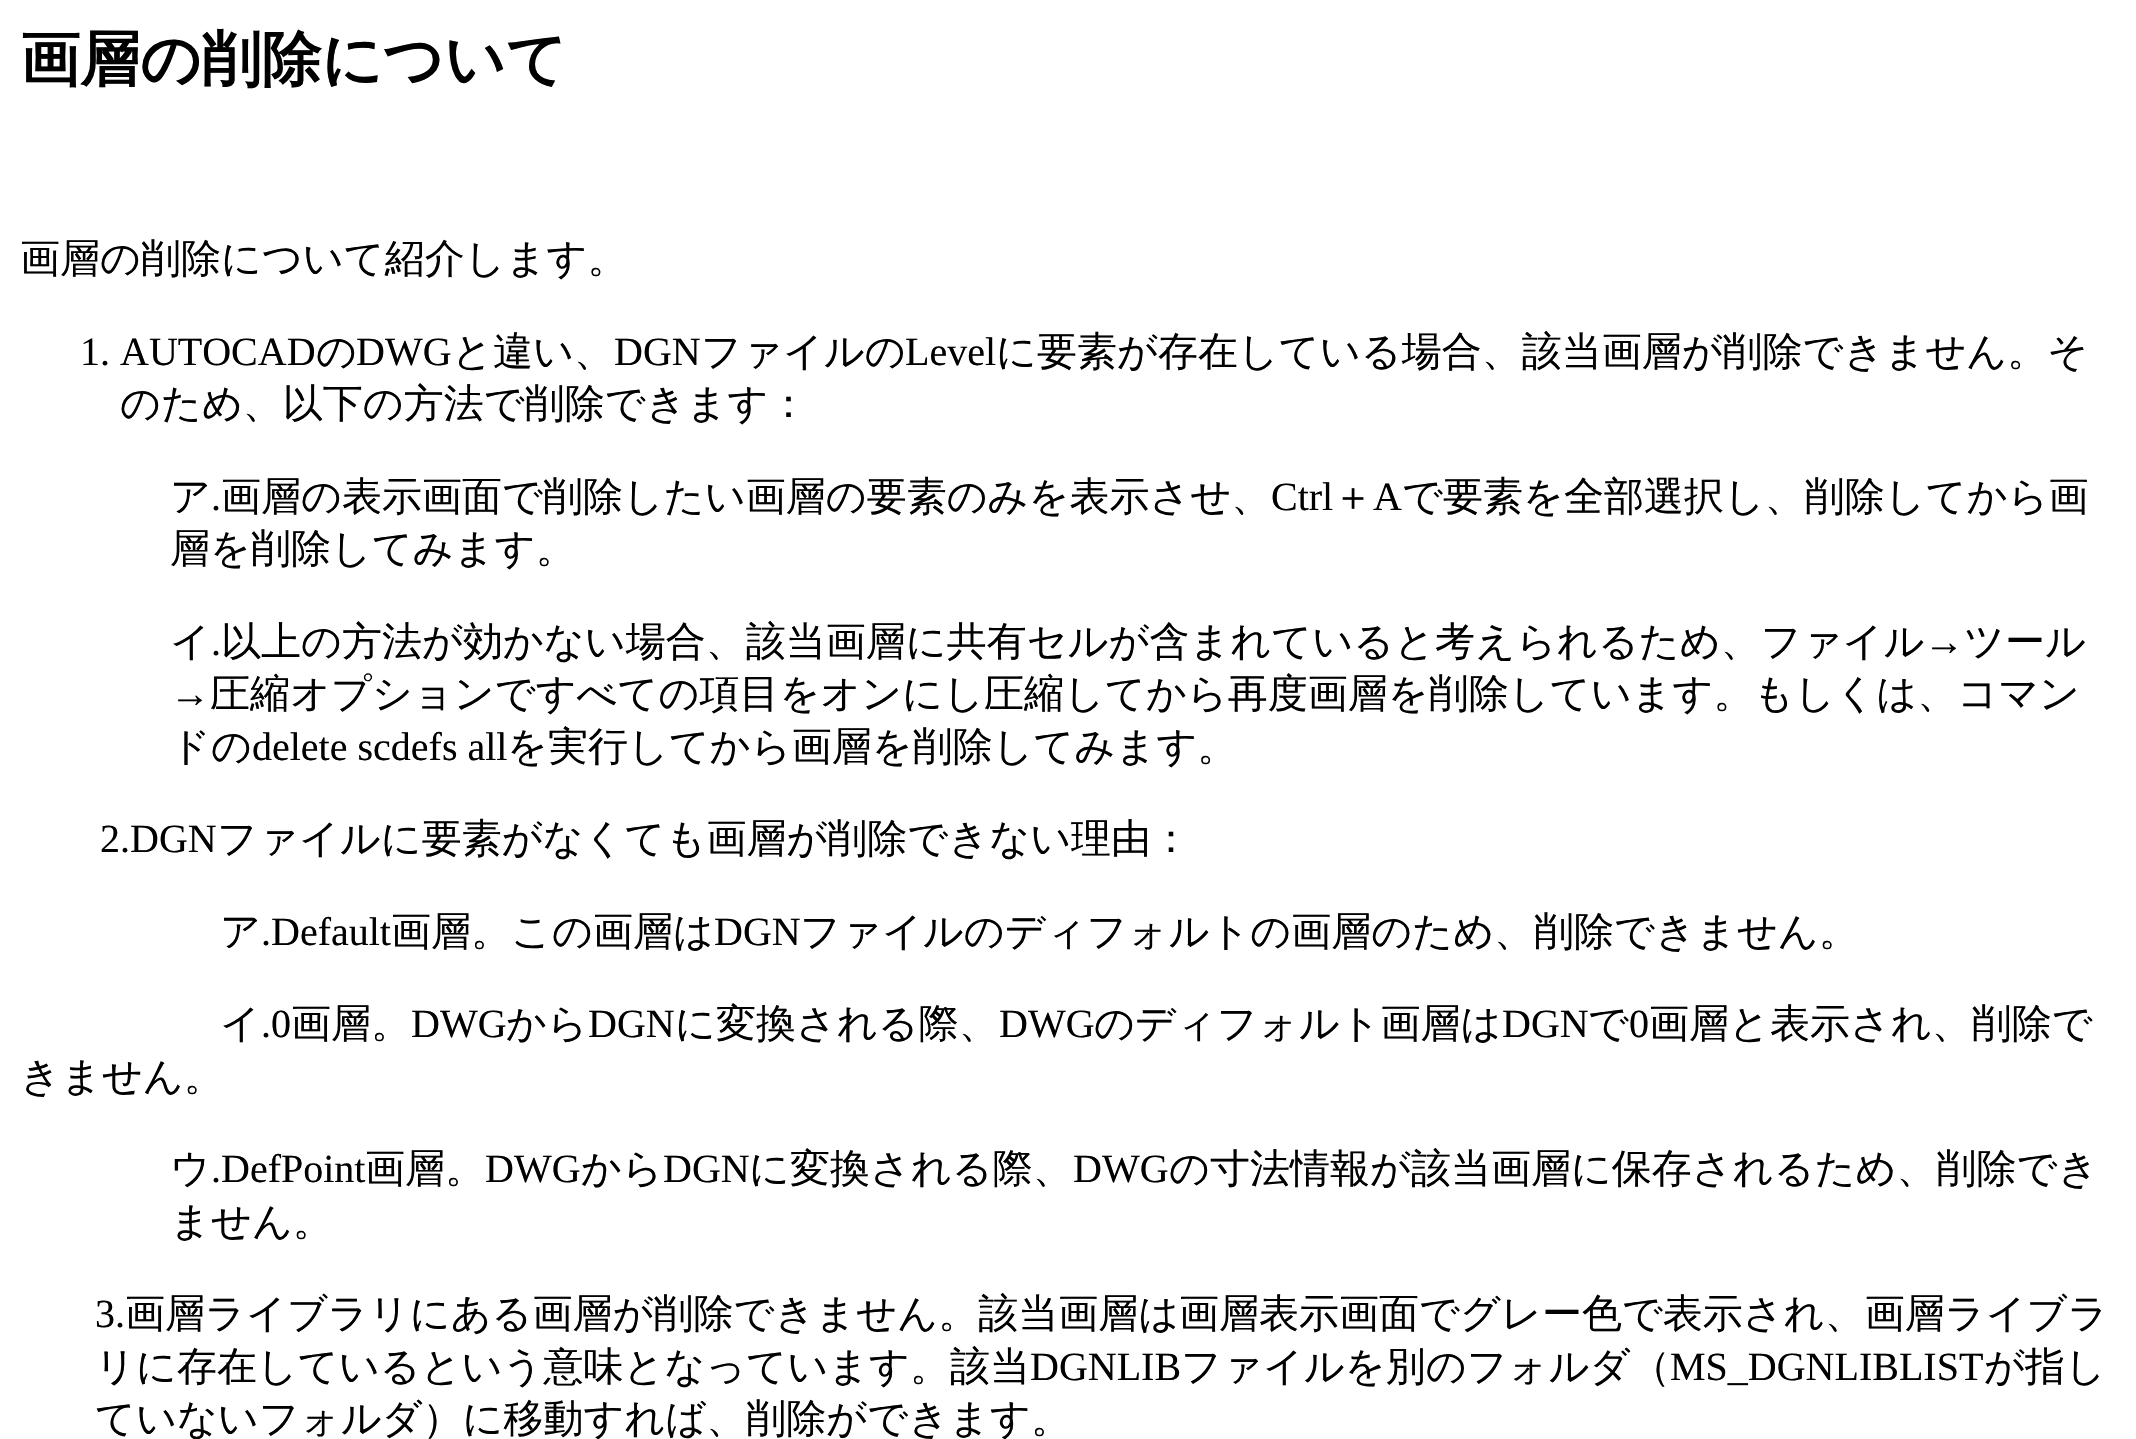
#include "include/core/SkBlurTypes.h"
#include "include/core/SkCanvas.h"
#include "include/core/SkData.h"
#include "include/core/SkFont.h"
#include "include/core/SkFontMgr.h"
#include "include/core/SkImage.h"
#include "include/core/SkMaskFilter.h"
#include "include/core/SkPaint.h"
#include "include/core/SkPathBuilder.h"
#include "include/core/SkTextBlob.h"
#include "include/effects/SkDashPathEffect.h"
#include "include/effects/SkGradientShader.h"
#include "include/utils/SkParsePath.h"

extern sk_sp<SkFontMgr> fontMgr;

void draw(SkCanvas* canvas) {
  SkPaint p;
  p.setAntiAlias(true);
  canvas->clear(SK_ColorWHITE);
  SkFont font1(fontMgr->matchFamilyStyle("WenQuanYi Zen Hei", SkFontStyle::Bold()), 60);
  font1.setSubpixel(true);
  p.setColor(SK_ColorBLACK);
  canvas->drawString("画層の削除について", 20, 80, font1, p);
  SkFont font2(fontMgr->matchFamilyStyle("WenQuanYi Zen Hei", SkFontStyle(500, SkFontStyle::kNormal_Width, SkFontStyle::kUpright_Slant)), 40);
  font2.setSubpixel(true);
  canvas->drawString("画層の削除について紹介します。", 20, 272, font2, p);
  SkFont font3(fontMgr->matchFamilyStyle("Liberation Serif", SkFontStyle::Normal()), 40);
  font3.setSubpixel(true);
  canvas->drawString("1. AUTOCAD", 80, 365, font3, p);
  canvas->drawString("の", 316, 365, font2, p);
  canvas->drawString("DWG", 356, 365, font3, p);
  canvas->drawString("と違い、", 452, 365, font2, p);
  canvas->drawString("DGN", 614, 365, font3, p);
  canvas->drawString("ファイルの", 701, 365, font2, p);
  canvas->drawString("Level", 905, 365, font3, p);
  canvas->drawString("に要素が存在している場合、該当画層が削除できません。そ", 996, 365, font2, p);
  canvas->drawString("のため、以下の方法で削除できます：", 120, 417, font2, p);
  canvas->drawString("ア", 170, 510, font2, p);
  canvas->drawString(".", 211, 510, font3, p);
  canvas->drawString("画層の表示画面で削除したい画層の要素のみを表示させ、", 221, 510, font2, p);
  canvas->drawString("Ctrl", 1271, 510, font3, p);
  canvas->drawString("＋", 1333, 510, font2, p);
  canvas->drawString("A", 1373, 510, font3, p);
  canvas->drawString("で要素を全部選択し、削除してから画", 1402, 510, font2, p);
  canvas->drawString("層を削除してみます。", 170, 562, font2, p);
  canvas->drawString("イ", 170, 655, font2, p);
  canvas->drawString(".", 211, 655, font3, p);
  canvas->drawString("以上の方法が効かない場合、該当画層に共有セルが含まれていると考えられるため、ファイル", 221, 655, font2, p);
  canvas->drawString("→", 1924, 655, font3, p);
  canvas->drawString("ツール", 1964, 655, font2, p);
  canvas->drawString("→", 170, 707, font3, p);
  canvas->drawString("圧縮オプションですべての項目をオンにし圧縮してから再度画層を削除しています。もしくは、コマン", 210, 707, font2, p);
  canvas->drawString("ドの", 170, 760, font2, p);
  canvas->drawString("delete scdefs all", 252, 760, font3, p);
  canvas->drawString("を実行してから画層を削除してみます。", 507, 760, font2, p);
  canvas->drawString("2.DGN", 100, 852, font3, p);
  canvas->drawString("ファイルに要素がなくても画層が削除できない理由：", 217, 852, font2, p);
  canvas->drawString("ア", 220, 945, font2, p);
  canvas->drawString(".Default", 261, 945, font3, p);
  canvas->drawString("画層。この画層は", 391, 945, font2, p);
  canvas->drawString("DGN", 714, 945, font3, p);
  canvas->drawString("ファイルのディフォルトの画層のため、削除できません。", 800, 945, font2, p);
  canvas->drawString("イ", 220, 1037, font2, p);
  canvas->drawString(".0", 261, 1037, font3, p);
  canvas->drawString("画層。", 291, 1037, font2, p);
  canvas->drawString("DWG", 411, 1037, font3, p);
  canvas->drawString("から", 506, 1037, font2, p);
  canvas->drawString("DGN", 588, 1037, font3, p);
  canvas->drawString("に変換される際、", 675, 1037, font2, p);
  canvas->drawString("DWG", 999, 1037, font3, p);
  canvas->drawString("のディフォルト画層は", 1094, 1037, font2, p);
  canvas->drawString("DGN", 1502, 1037, font3, p);
  canvas->drawString("で", 1588, 1037, font2, p);
  canvas->drawString("0", 1629, 1037, font3, p);
  canvas->drawString("画層と表示され、削除で", 1649, 1037, font2, p);
  canvas->drawString("きません。", 20, 1090, font2, p);
  canvas->drawString("ウ", 170, 1182, font2, p);
  canvas->drawString(".DefPoint", 211, 1182, font3, p);
  canvas->drawString("画層。", 365, 1182, font2, p);
  canvas->drawString("DWG", 485, 1182, font3, p);
  canvas->drawString("から", 581, 1182, font2, p);
  canvas->drawString("DGN", 663, 1182, font3, p);
  canvas->drawString("に変換される際、", 749, 1182, font2, p);
  canvas->drawString("DWG", 1073, 1182, font3, p);
  canvas->drawString("の寸法情報が該当画層に保存されるため、削除でき", 1169, 1182, font2, p);
  canvas->drawString("ません。", 170, 1235, font2, p);
  canvas->drawString("3.", 95, 1327, font3, p);
  canvas->drawString("画層ライブラリにある画層が削除できません。該当画層は画層表示画面でグレー色で表示され、画層ライブラ", 125, 1327, font2, p);
  canvas->drawString("リに存在しているという意味となっています。該当", 95, 1380, font2, p);
  canvas->drawString("DGNLIB", 1030, 1380, font3, p);
  canvas->drawString("ファイルを別のフォルダ（", 1181, 1380, font2, p);
  canvas->drawString("MS_DGNLIBLIST", 1670, 1380, font3, p);
  canvas->drawString("が指し", 1984, 1380, font2, p);
  canvas->drawString("ていないフォルダ）に移動すれば、削除ができます。", 95, 1432, font2, p);
}
